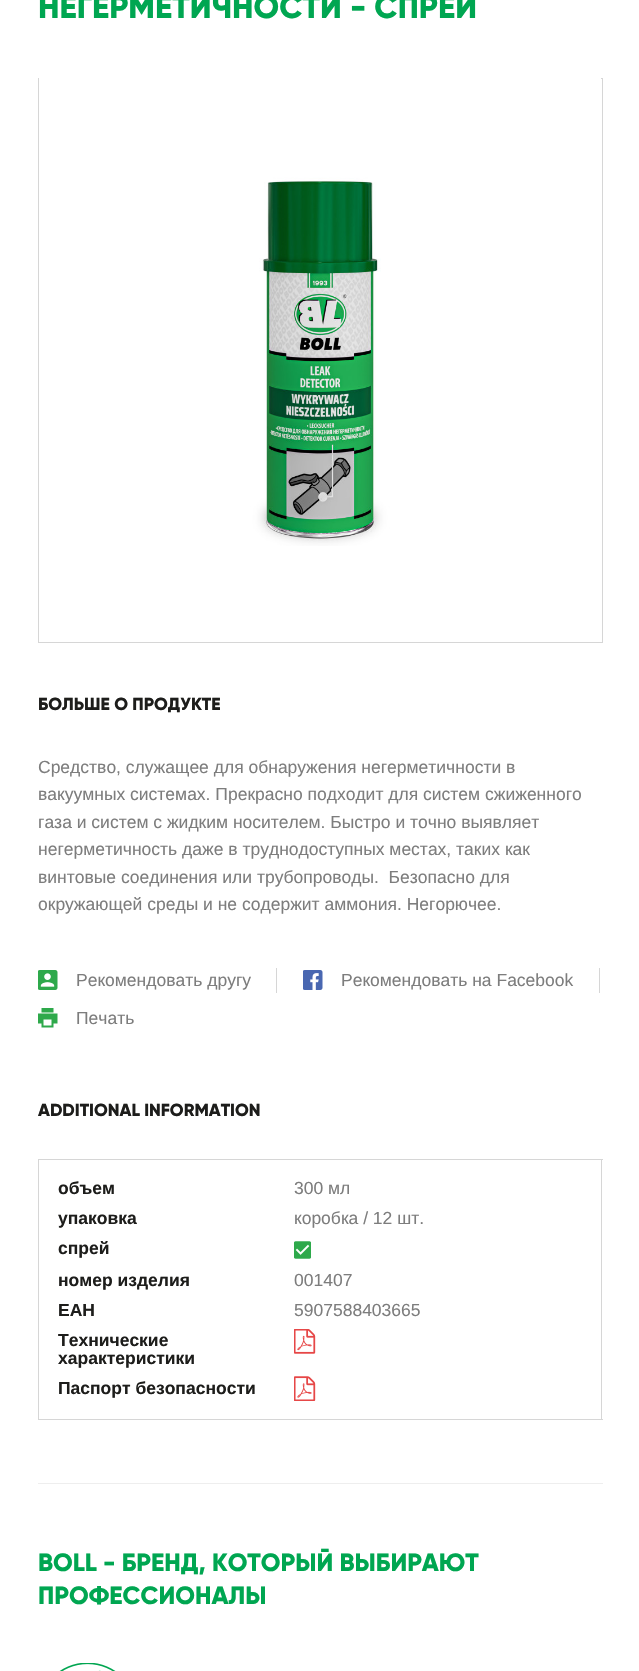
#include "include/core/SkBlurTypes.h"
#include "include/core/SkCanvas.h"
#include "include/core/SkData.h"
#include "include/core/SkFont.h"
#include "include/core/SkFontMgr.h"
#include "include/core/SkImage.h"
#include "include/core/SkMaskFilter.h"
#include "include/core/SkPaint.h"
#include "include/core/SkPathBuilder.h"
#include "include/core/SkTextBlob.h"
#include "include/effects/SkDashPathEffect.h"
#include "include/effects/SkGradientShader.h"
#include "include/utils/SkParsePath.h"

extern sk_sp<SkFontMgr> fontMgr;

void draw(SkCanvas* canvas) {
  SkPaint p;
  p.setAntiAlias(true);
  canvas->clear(SK_ColorWHITE);
  p.setStyle(SkPaint::kStroke_Style);
  p.setStrokeWidth(1);
  p.setColor(SkColorSetRGB(214, 214, 214));
  canvas->drawRect(SkRect::MakeLTRB(38.5f, 78.5f, 602.5f, 642.5f), p);
  canvas->drawImageRect(SkImages::DeferredFromEncodedData(SkData::MakeFromFileName("images/1.png")), SkRect::MakeLTRB(39, 78, 601, 546), SkSamplingOptions());
  p.setStyle(SkPaint::kFill_Style);
  canvas->drawRect(SkRect::MakeLTRB(276, 968, 277, 993), p);
  canvas->drawImageRect(SkImages::DeferredFromEncodedData(SkData::MakeFromFileName("images/2.png")), SkRect::MakeLTRB(38, 970, 58, 990), SkSamplingOptions());
  canvas->drawRect(SkRect::MakeLTRB(599, 968, 600, 993), p);
  canvas->drawImageRect(SkImages::DeferredFromEncodedData(SkData::MakeFromFileName("images/3.png")), SkRect::MakeLTRB(303, 970, 323, 990), SkSamplingOptions());
  canvas->drawImageRect(SkImages::DeferredFromEncodedData(SkData::MakeFromFileName("images/4.png")), SkRect::MakeLTRB(38, 1008, 58, 1028), SkSamplingOptions());
  canvas->drawRect(SkRect::MakeLTRB(38, 1159, 603, 1160), p);
  canvas->drawRect(SkRect::MakeLTRB(601, 1159, 602, 1420), p);
  canvas->drawRect(SkRect::MakeLTRB(38, 1419, 603, 1420), p);
  canvas->drawRect(SkRect::MakeLTRB(38, 1159, 39, 1420), p);
  canvas->drawImageRect(SkImages::DeferredFromEncodedData(SkData::MakeFromFileName("images/5.png")), SkRect::MakeLTRB(294, 1241, 311, 1259), SkSamplingOptions());
  canvas->drawImageRect(SkImages::DeferredFromEncodedData(SkData::MakeFromFileName("images/6.png")), SkRect::MakeLTRB(294, 1329, 316, 1354), SkSamplingOptions());
  canvas->drawImageRect(SkImages::DeferredFromEncodedData(SkData::MakeFromFileName("images/7.png")), SkRect::MakeLTRB(294, 1376, 316, 1401), SkSamplingOptions());
  p.setColor(SkColorSetRGB(238, 238, 238));
  canvas->drawRect(SkRect::MakeLTRB(38, 1483, 603, 1484), p);
  canvas->drawImageRect(SkImages::DeferredFromEncodedData(SkData::MakeFromFileName("images/8.png")), SkRect::MakeLTRB(59, 1663, 116, 1671), SkSamplingOptions());
  SkFont font1(fontMgr->matchFamilyStyle("Gilroy", SkFontStyle(800, SkFontStyle::kNormal_Width, SkFontStyle::kUpright_Slant)), 32.5f);
  font1.setSubpixel(true);
  p.setColor(SkColorSetRGB(0, 166, 81));
  canvas->drawString("НЕГЕРМЕТИЧНОСТИ - СПРЕЙ", 38, 18, font1, p);
  SkFont font2(fontMgr->matchFamilyStyle("Gilroy", SkFontStyle(800, SkFontStyle::kNormal_Width, SkFontStyle::kUpright_Slant)), 17.5f);
  font2.setSubpixel(true);
  p.setColor(SkColorSetRGB(29, 29, 27));
  canvas->drawString("БОЛЬШЕ О ПРОДУКТЕ", 38, 710, font2, p);
  SkFont font3(fontMgr->matchFamilyStyle("Liberation Sans", SkFontStyle::Normal()), 17.5f);
  font3.setSubpixel(true);
  p.setColor(SkColorSetRGB(125, 125, 125));
  canvas->drawString("Средство, служащее для обнаружения негерметичности в", 38, 773, font3, p);
  canvas->drawString("вакуумных системах. Прекрасно подходит для систем сжиженного", 38, 800, font3, p);
  canvas->drawString("газа и систем с жидким носителем. Быстро и точно выявляет", 38, 828, font3, p);
  canvas->drawString("негерметичность даже в труднодоступных местах, таких как", 38, 855, font3, p);
  canvas->drawString("винтовые соединения или трубопроводы.  Безопасно для", 38, 883, font3, p);
  canvas->drawString("окружающей среды и не содержит аммония. Негорючее.", 38, 910, font3, p);
  canvas->drawString("Рекомендовать другу", 76, 986, font3, p);
  canvas->drawString("Рекомендовать на Facebook", 341, 986, font3, p);
  canvas->drawString("Печать", 76, 1024, font3, p);
  p.setColor(SkColorSetRGB(29, 29, 27));
  canvas->drawString("ADDITIONAL INFORMATION", 38, 1116, font2, p);
  SkFont font4(fontMgr->matchFamilyStyle("Liberation Sans", SkFontStyle::Bold()), 17.5f);
  font4.setSubpixel(true);
  canvas->drawString("объем", 58, 1194, font4, p);
  p.setColor(SkColorSetRGB(125, 125, 125));
  canvas->drawString("300 мл", 294, 1194, font3, p);
  p.setColor(SkColorSetRGB(29, 29, 27));
  canvas->drawString("упаковка", 58, 1224, font4, p);
  p.setColor(SkColorSetRGB(125, 125, 125));
  canvas->drawString("коробка / 12 шт.", 294, 1224, font3, p);
  p.setColor(SkColorSetRGB(29, 29, 27));
  canvas->drawString("спрей", 58, 1254, font4, p);
  canvas->drawString("номер изделия", 58, 1286, font4, p);
  p.setColor(SkColorSetRGB(125, 125, 125));
  canvas->drawString("001407", 294, 1286, font3, p);
  p.setColor(SkColorSetRGB(29, 29, 27));
  canvas->drawString("ЕАН", 58, 1316, font4, p);
  p.setColor(SkColorSetRGB(125, 125, 125));
  canvas->drawString("5907588403665", 294, 1316, font3, p);
  p.setColor(SkColorSetRGB(29, 29, 27));
  canvas->drawString("Технические", 58, 1346, font4, p);
  canvas->drawString("характеристики", 58, 1364, font4, p);
  canvas->drawString("Паспорт безопасности", 58, 1394, font4, p);
  SkFont font5(fontMgr->matchFamilyStyle("Gilroy", SkFontStyle(800, SkFontStyle::kNormal_Width, SkFontStyle::kUpright_Slant)), 25);
  font5.setSubpixel(true);
  p.setColor(SkColorSetRGB(0, 166, 81));
  canvas->drawString("BOLL - БРЕНД, КОТОРЫЙ ВЫБИРАЮТ", 38, 1571, font5, p);
  canvas->drawString("ПРОФЕССИОНАЛЫ", 38, 1604, font5, p);
}
